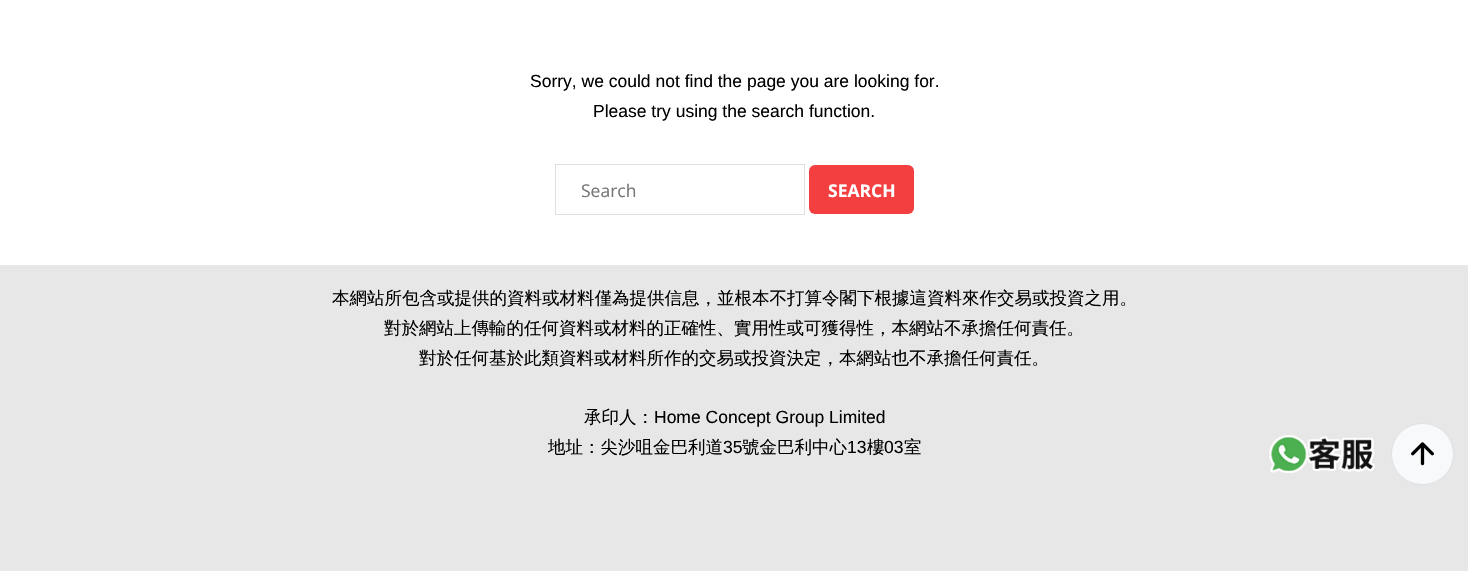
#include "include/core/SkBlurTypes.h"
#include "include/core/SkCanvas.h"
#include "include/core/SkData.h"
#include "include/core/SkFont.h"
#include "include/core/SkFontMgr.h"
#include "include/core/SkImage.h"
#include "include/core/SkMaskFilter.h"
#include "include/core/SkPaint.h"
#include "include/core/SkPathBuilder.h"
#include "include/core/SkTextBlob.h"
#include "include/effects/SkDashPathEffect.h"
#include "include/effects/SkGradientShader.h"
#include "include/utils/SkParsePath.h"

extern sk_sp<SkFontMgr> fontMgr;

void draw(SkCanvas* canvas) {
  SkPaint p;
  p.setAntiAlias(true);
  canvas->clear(SK_ColorWHITE);
  p.setStyle(SkPaint::kStroke_Style);
  p.setStrokeWidth(1);
  p.setColor(SkColorSetRGB(224, 224, 224));
  canvas->drawRect(SkRect::MakeLTRB(555.5f, 164.5f, 804.5f, 214.5f), p);
  p.setStyle(SkPaint::kFill_Style);
  p.setColor(SkColorSetRGB(243, 63, 63));
  canvas->drawRoundRect(SkRect::MakeLTRB(809, 165, 914, 214), 6, 6, p);
  p.setColor(SkColorSetRGB(231, 231, 231));
  canvas->drawRect(SkRect::MakeLTRB(0, 265, 1468, 571), p);
  canvas->drawImageRect(SkImages::DeferredFromEncodedData(SkData::MakeFromFileName("images/1.png")), SkRect::MakeLTRB(1269, 435, 1375, 473), SkSamplingOptions());
  p.setColor(SkColorSetRGB(248, 249, 250));
  canvas->drawRoundRect(SkRect::MakeLTRB(1391.5f, 423.5f, 1453.5f, 484.5f), 30.5f, 30.5f, p);
  p.setStyle(SkPaint::kStroke_Style);
  p.setColor(SkColorSetRGB(222, 226, 230));
  canvas->drawRoundRect(SkRect::MakeLTRB(1391.5f, 423.5f, 1453.5f, 484.5f), 30.5f, 30.5f, p);
  canvas->drawImageRect(SkImages::DeferredFromEncodedData(SkData::MakeFromFileName("images/2.png")), SkRect::MakeLTRB(1411, 442, 1434, 466), SkSamplingOptions());
  SkFont font1(fontMgr->matchFamilyStyle("Liberation Sans", SkFontStyle::Normal()), 17.5f);
  font1.setSubpixel(true);
  p.setStyle(SkPaint::kFill_Style);
  p.setColor(SK_ColorBLACK);
  canvas->drawString("Sorry, we could not find the page you are looking for.", 530, 87, font1, p);
  canvas->drawString("Please try using the search function.", 593, 117, font1, p);
  SkFont font2(fontMgr->matchFamilyStyle("Open Sans", SkFontStyle::Normal()), 17.5f);
  font2.setSubpixel(true);
  p.setColor(SkColorSetRGB(117, 117, 117));
  canvas->drawString("Search", 581, 197, font2, p);
  SkFont font3(fontMgr->matchFamilyStyle("Open Sans", SkFontStyle::Bold()), 17.5f);
  font3.setSubpixel(true);
  p.setColor(SK_ColorWHITE);
  canvas->drawString("SEARCH", 828, 197, font3, p);
  SkFont font4(fontMgr->matchFamilyStyle("WenQuanYi Zen Hei", SkFontStyle(500, SkFontStyle::kNormal_Width, SkFontStyle::kUpright_Slant)), 17.5f);
  font4.setSubpixel(true);
  p.setColor(SK_ColorBLACK);
  canvas->drawString("本網站所包含或提供的資料或材料僅為提供信息，並根本不打算令閣下根據這資料來作交易或投資之用。", 332, 304, font4, p);
  canvas->drawString("對於網站上傳輸的任何資料或材料的正確性、實用性或可獲得性，本網站不承擔任何責任。", 384, 334, font4, p);
  canvas->drawString("對於任何基於此類資料或材料所作的交易或投資決定，本網站也不承擔任何責任。", 419, 364, font4, p);
  canvas->drawString("承印人：", 584, 423, font4, p);
  canvas->drawString("Home Concept Group Limited", 654, 423, font1, p);
  canvas->drawString("地址：尖沙咀金巴利道", 548, 453, font4, p);
  canvas->drawString("35", 723, 453, font1, p);
  canvas->drawString("號金巴利中心", 742, 453, font4, p);
  canvas->drawString("13", 847, 453, font1, p);
  canvas->drawString("樓", 867, 453, font4, p);
  canvas->drawString("03", 884, 453, font1, p);
  canvas->drawString("室", 904, 453, font4, p);
}
